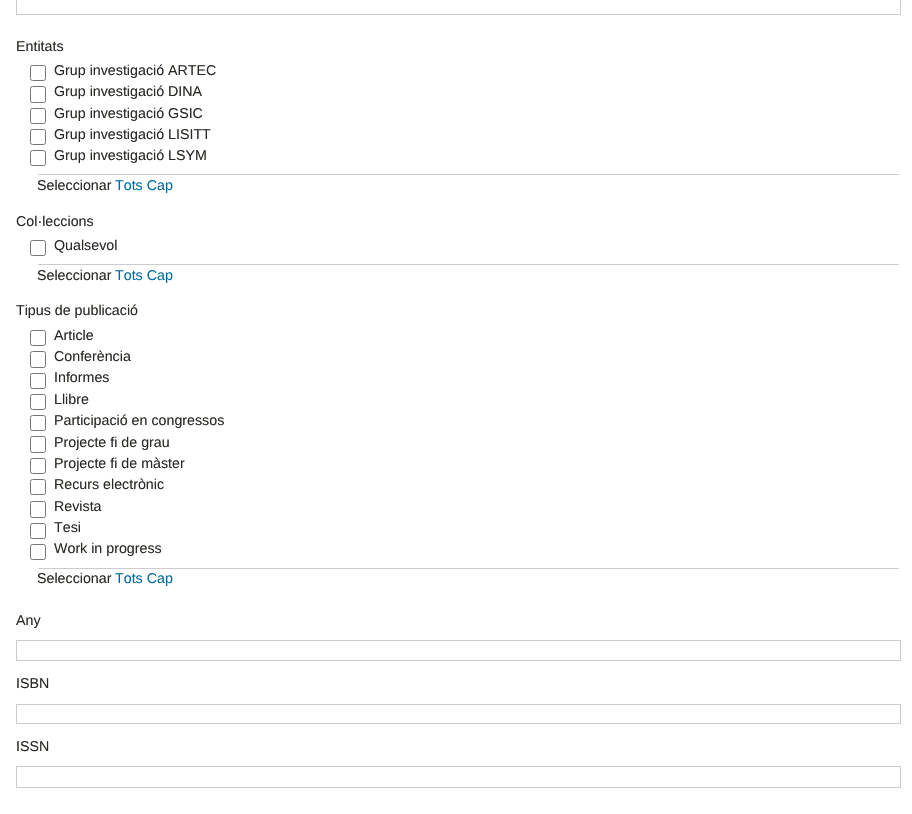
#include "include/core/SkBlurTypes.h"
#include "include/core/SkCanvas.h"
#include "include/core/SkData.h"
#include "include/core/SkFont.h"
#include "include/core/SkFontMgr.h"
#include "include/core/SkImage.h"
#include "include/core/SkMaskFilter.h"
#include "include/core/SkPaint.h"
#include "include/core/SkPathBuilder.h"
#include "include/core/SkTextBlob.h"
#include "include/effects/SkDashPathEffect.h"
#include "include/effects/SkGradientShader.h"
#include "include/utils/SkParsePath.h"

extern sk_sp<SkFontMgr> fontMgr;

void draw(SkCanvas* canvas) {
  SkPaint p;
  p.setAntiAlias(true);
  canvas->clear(SK_ColorWHITE);
  p.setStyle(SkPaint::kStroke_Style);
  p.setStrokeWidth(1);
  p.setColor(SkColorSetRGB(204, 204, 204));
  canvas->drawRect(SkRect::MakeLTRB(16.5f, -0.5f, 900.5f, 14.5f), p);
  p.setColor(SkColorSetRGB(118, 118, 118));
  canvas->drawRoundRect(SkRect::MakeLTRB(30.5f, 65.5f, 45.5f, 80.5f), 2, 2, p);
  canvas->drawRoundRect(SkRect::MakeLTRB(30.5f, 86.5f, 45.5f, 102.5f), 2, 2, p);
  canvas->drawRoundRect(SkRect::MakeLTRB(30.5f, 108.5f, 45.5f, 123.5f), 2, 2, p);
  canvas->drawRoundRect(SkRect::MakeLTRB(30.5f, 129.5f, 45.5f, 144.5f), 2, 2, p);
  canvas->drawRoundRect(SkRect::MakeLTRB(30.5f, 150.5f, 45.5f, 165.5f), 2, 2, p);
  p.setStyle(SkPaint::kFill_Style);
  p.setColor(SkColorSetRGB(204, 204, 204));
  canvas->drawRect(SkRect::MakeLTRB(38, 174, 899, 175), p);
  p.setStyle(SkPaint::kStroke_Style);
  p.setColor(SkColorSetRGB(118, 118, 118));
  canvas->drawRoundRect(SkRect::MakeLTRB(30.5f, 240.5f, 45.5f, 255.5f), 2, 2, p);
  p.setStyle(SkPaint::kFill_Style);
  p.setColor(SkColorSetRGB(204, 204, 204));
  canvas->drawRect(SkRect::MakeLTRB(38, 264, 899, 265), p);
  p.setStyle(SkPaint::kStroke_Style);
  p.setColor(SkColorSetRGB(118, 118, 118));
  canvas->drawRoundRect(SkRect::MakeLTRB(30.5f, 330.5f, 45.5f, 345.5f), 2, 2, p);
  canvas->drawRoundRect(SkRect::MakeLTRB(30.5f, 351.5f, 45.5f, 367.5f), 2, 2, p);
  canvas->drawRoundRect(SkRect::MakeLTRB(30.5f, 373.5f, 45.5f, 388.5f), 2, 2, p);
  canvas->drawRoundRect(SkRect::MakeLTRB(30.5f, 394.5f, 45.5f, 409.5f), 2, 2, p);
  canvas->drawRoundRect(SkRect::MakeLTRB(30.5f, 415.5f, 45.5f, 430.5f), 2, 2, p);
  canvas->drawRoundRect(SkRect::MakeLTRB(30.5f, 436.5f, 45.5f, 452.5f), 2, 2, p);
  canvas->drawRoundRect(SkRect::MakeLTRB(30.5f, 458.5f, 45.5f, 473.5f), 2, 2, p);
  canvas->drawRoundRect(SkRect::MakeLTRB(30.5f, 479.5f, 45.5f, 494.5f), 2, 2, p);
  canvas->drawRoundRect(SkRect::MakeLTRB(30.5f, 501.5f, 45.5f, 517.5f), 2, 2, p);
  canvas->drawRoundRect(SkRect::MakeLTRB(30.5f, 523.5f, 45.5f, 538.5f), 2, 2, p);
  canvas->drawRoundRect(SkRect::MakeLTRB(30.5f, 544.5f, 45.5f, 559.5f), 2, 2, p);
  p.setStyle(SkPaint::kFill_Style);
  p.setColor(SkColorSetRGB(204, 204, 204));
  canvas->drawRect(SkRect::MakeLTRB(38, 568, 899, 569), p);
  p.setStyle(SkPaint::kStroke_Style);
  canvas->drawRect(SkRect::MakeLTRB(16.5f, 640.5f, 900.5f, 660.5f), p);
  canvas->drawRect(SkRect::MakeLTRB(16.5f, 704.5f, 900.5f, 723.5f), p);
  canvas->drawRect(SkRect::MakeLTRB(16.5f, 766.5f, 900.5f, 787.5f), p);
  SkFont font1(fontMgr->matchFamilyStyle("Liberation Sans", SkFontStyle::Normal()), 14.25f);
  font1.setSubpixel(true);
  p.setStyle(SkPaint::kFill_Style);
  p.setColor(SkColorSetRGB(41, 42, 37));
  canvas->drawString("Entitats", 16, 51, font1, p);
  canvas->drawString("Grup investigació ARTEC", 54, 75, font1, p);
  canvas->drawString("Grup investigació DINA", 54, 96, font1, p);
  canvas->drawString("Grup investigació GSIC", 54, 118, font1, p);
  canvas->drawString("Grup investigació LISITT", 54, 139, font1, p);
  canvas->drawString("Grup investigació LSYM", 54, 160, font1, p);
  canvas->drawString("Seleccionar", 37, 190, font1, p);
  p.setColor(SkColorSetRGB(1, 108, 162));
  canvas->drawString("Tots Cap", 115, 190, font1, p);
  p.setColor(SkColorSetRGB(41, 42, 37));
  canvas->drawString("Col·leccions", 16, 226, font1, p);
  canvas->drawString("Qualsevol", 54, 250, font1, p);
  canvas->drawString("Seleccionar", 37, 280, font1, p);
  p.setColor(SkColorSetRGB(1, 108, 162));
  canvas->drawString("Tots Cap", 115, 280, font1, p);
  p.setColor(SkColorSetRGB(41, 42, 37));
  canvas->drawString("Tipus de publicació", 16, 315, font1, p);
  canvas->drawString("Article", 54, 340, font1, p);
  canvas->drawString("Conferència", 54, 361, font1, p);
  canvas->drawString("Informes", 54, 382, font1, p);
  canvas->drawString("Llibre", 54, 404, font1, p);
  canvas->drawString("Participació en congressos", 54, 425, font1, p);
  canvas->drawString("Projecte fi de grau", 54, 447, font1, p);
  canvas->drawString("Projecte fi de màster", 54, 468, font1, p);
  canvas->drawString("Recurs electrònic", 54, 489, font1, p);
  canvas->drawString("Revista", 54, 511, font1, p);
  canvas->drawString("Tesi", 54, 532, font1, p);
  canvas->drawString("Work in progress", 54, 553, font1, p);
  canvas->drawString("Seleccionar", 37, 583, font1, p);
  p.setColor(SkColorSetRGB(1, 108, 162));
  canvas->drawString("Tots Cap", 115, 583, font1, p);
  p.setColor(SkColorSetRGB(41, 42, 37));
  canvas->drawString("Any", 16, 625, font1, p);
  canvas->drawString("ISBN", 16, 688, font1, p);
  canvas->drawString("ISSN", 16, 751, font1, p);
}
